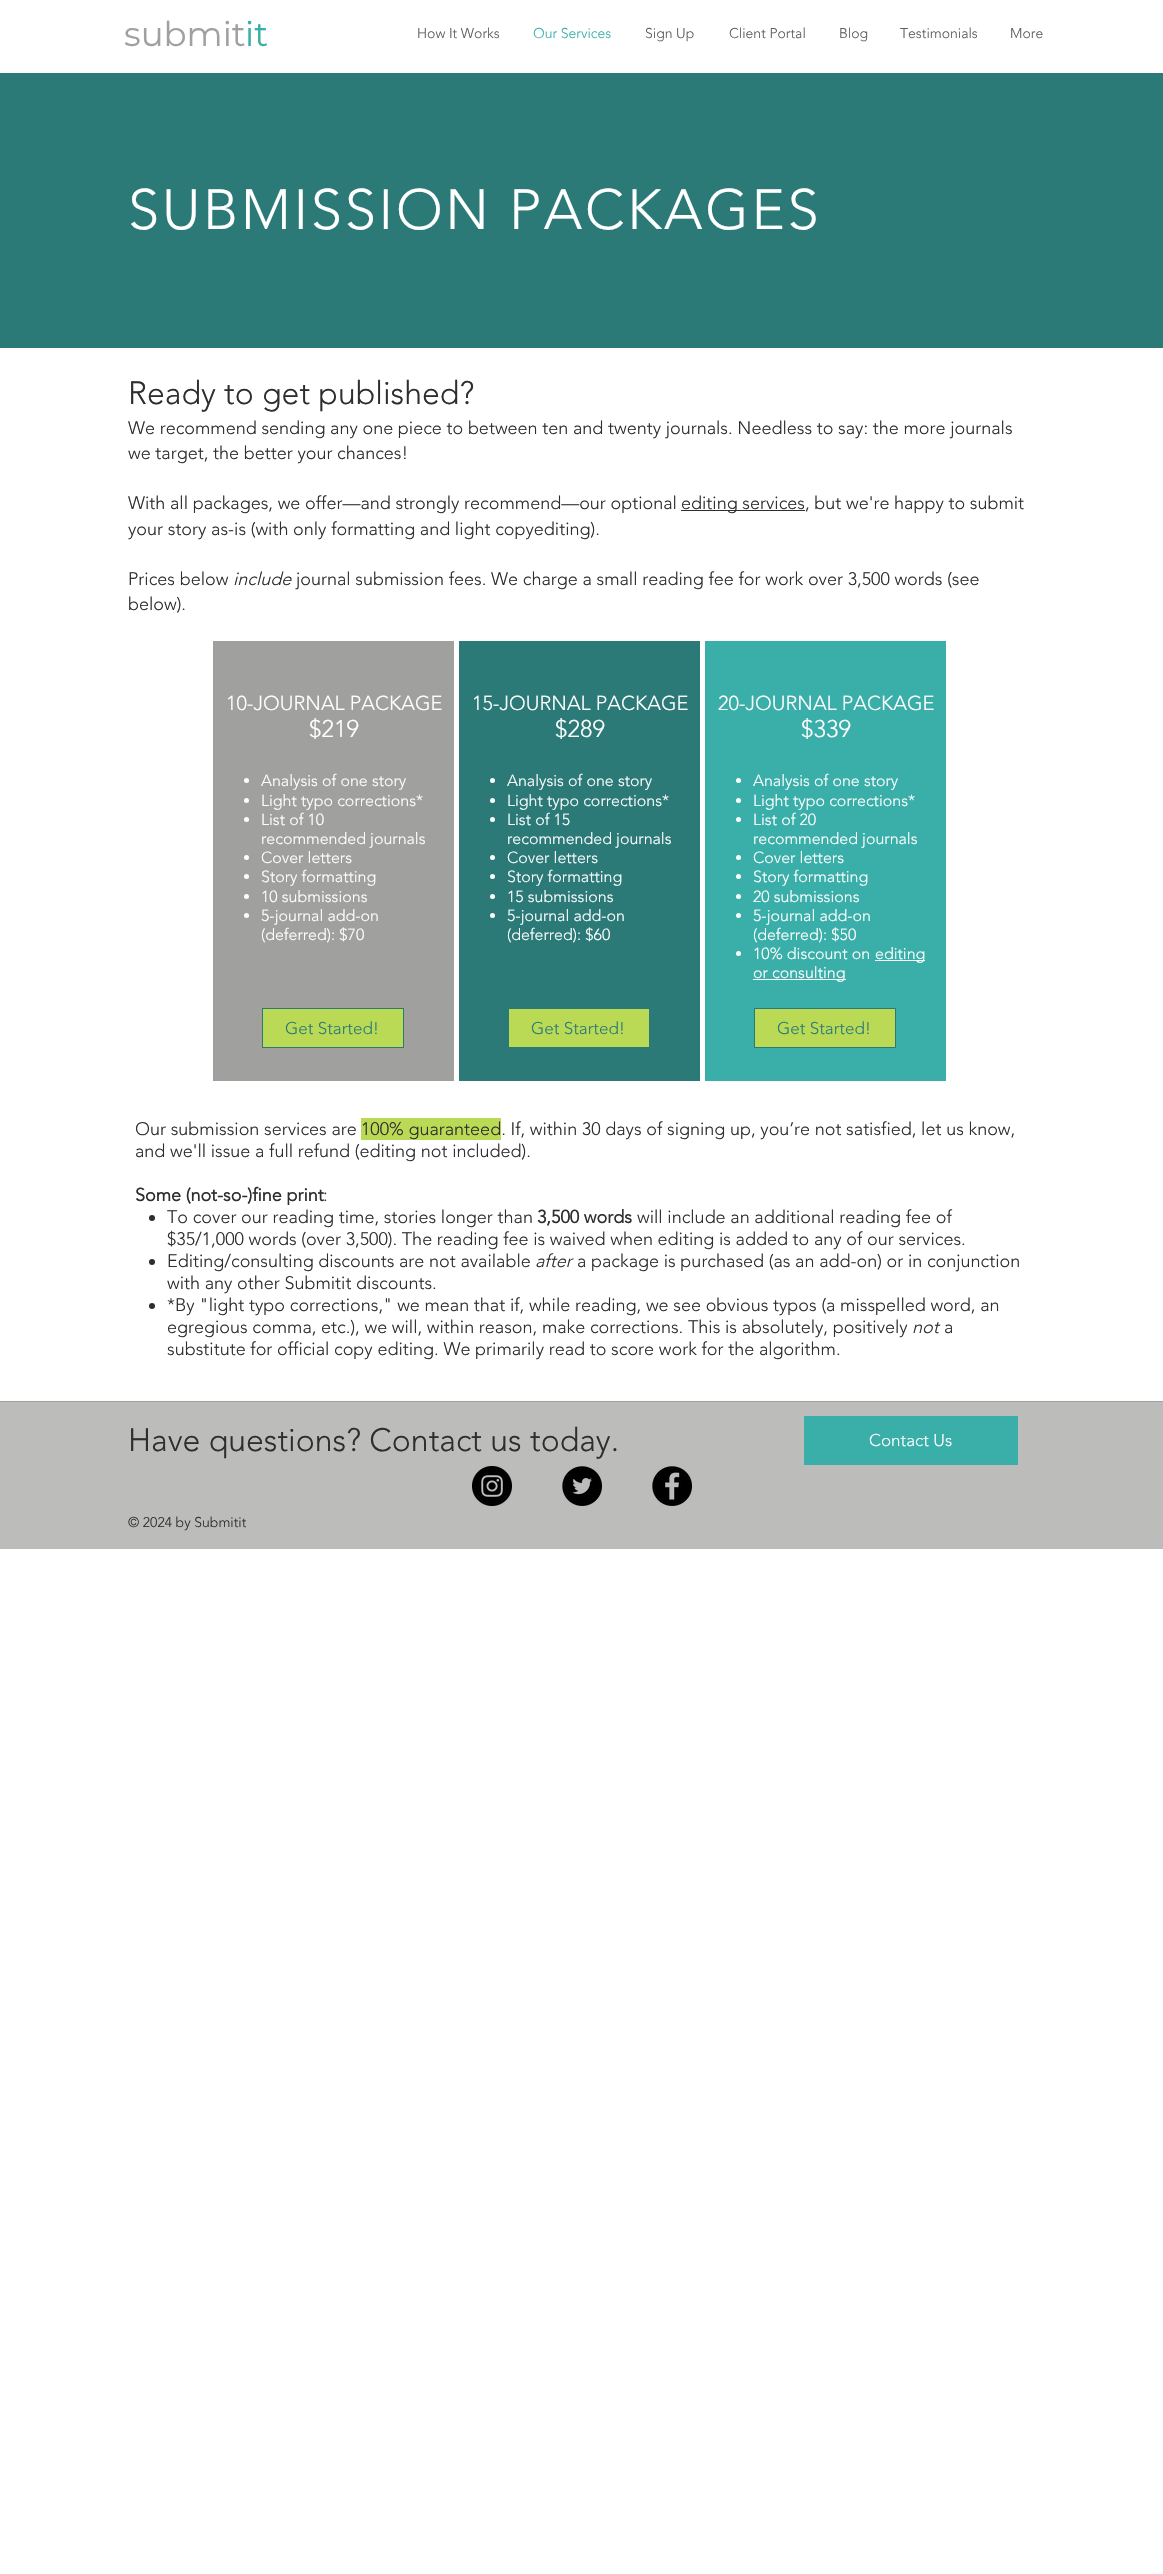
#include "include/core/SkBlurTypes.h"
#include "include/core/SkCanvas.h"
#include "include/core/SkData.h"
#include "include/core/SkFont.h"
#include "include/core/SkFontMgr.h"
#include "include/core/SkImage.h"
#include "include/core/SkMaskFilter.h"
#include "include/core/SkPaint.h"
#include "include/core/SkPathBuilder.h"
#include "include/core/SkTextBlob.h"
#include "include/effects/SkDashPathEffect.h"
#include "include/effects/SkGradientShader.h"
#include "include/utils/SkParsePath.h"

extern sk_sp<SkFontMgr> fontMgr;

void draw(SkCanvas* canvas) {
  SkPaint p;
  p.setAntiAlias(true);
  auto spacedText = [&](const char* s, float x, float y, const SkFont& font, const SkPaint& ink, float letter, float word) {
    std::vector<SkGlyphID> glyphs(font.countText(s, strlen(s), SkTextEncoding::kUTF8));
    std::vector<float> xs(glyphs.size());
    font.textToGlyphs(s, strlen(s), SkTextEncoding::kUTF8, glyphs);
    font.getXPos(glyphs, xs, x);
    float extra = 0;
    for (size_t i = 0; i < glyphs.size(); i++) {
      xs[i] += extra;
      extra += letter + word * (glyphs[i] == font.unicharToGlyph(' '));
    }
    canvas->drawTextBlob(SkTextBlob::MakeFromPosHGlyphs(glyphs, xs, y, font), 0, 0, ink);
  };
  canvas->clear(SK_ColorWHITE);
  p.setColor(SkColorSetRGB(43, 122, 120));
  canvas->drawRect(SkRect::MakeLTRB(0, 73, 1163, 348), p);
  p.setColor(SkColorSetRGB(47, 46, 46));
  canvas->drawRect(SkRect::MakeLTRB(681, 510, 805, 511), p);
  p.setColor(SkColorSetRGB(160, 160, 159));
  canvas->drawRect(SkRect::MakeLTRB(213, 641, 454, 1081), p);
  p.setColor(SK_ColorWHITE);
  canvas->drawCircle(246.5f, 780.5f, 2.5f, p);
  canvas->drawCircle(246.5f, 800.5f, 2.5f, p);
  canvas->drawCircle(246.5f, 819.5f, 2.5f, p);
  canvas->drawCircle(246.5f, 857.5f, 2.5f, p);
  canvas->drawCircle(246.5f, 876.5f, 2.5f, p);
  canvas->drawCircle(246.5f, 896.5f, 2.5f, p);
  canvas->drawCircle(246.5f, 915.5f, 2.5f, p);
  p.setColor(SkColorSetRGB(186, 218, 85));
  canvas->drawRect(SkRect::MakeLTRB(262.5f, 1008.5f, 403.5f, 1047.5f), p);
  p.setStyle(SkPaint::kStroke_Style);
  p.setStrokeWidth(1);
  p.setColor(SkColorSetRGB(43, 122, 120));
  canvas->drawRect(SkRect::MakeLTRB(262.5f, 1008.5f, 403.5f, 1047.5f), p);
  p.setStyle(SkPaint::kFill_Style);
  canvas->drawRect(SkRect::MakeLTRB(459, 641, 700, 1081), p);
  p.setColor(SK_ColorWHITE);
  canvas->drawCircle(492.5f, 780.5f, 2.5f, p);
  canvas->drawCircle(492.5f, 800.5f, 2.5f, p);
  canvas->drawCircle(492.5f, 819.5f, 2.5f, p);
  canvas->drawCircle(492.5f, 857.5f, 2.5f, p);
  canvas->drawCircle(492.5f, 876.5f, 2.5f, p);
  canvas->drawCircle(492.5f, 896.5f, 2.5f, p);
  canvas->drawCircle(492.5f, 915.5f, 2.5f, p);
  p.setColor(SkColorSetRGB(186, 218, 85));
  canvas->drawRect(SkRect::MakeLTRB(509, 1009, 649, 1047), p);
  p.setColor(SkColorSetRGB(58, 175, 169));
  canvas->drawRect(SkRect::MakeLTRB(705, 641, 946, 1081), p);
  p.setColor(SK_ColorWHITE);
  canvas->drawCircle(738.5f, 780.5f, 2.5f, p);
  canvas->drawCircle(738.5f, 800.5f, 2.5f, p);
  canvas->drawCircle(738.5f, 819.5f, 2.5f, p);
  canvas->drawCircle(738.5f, 857.5f, 2.5f, p);
  canvas->drawCircle(738.5f, 876.5f, 2.5f, p);
  canvas->drawCircle(738.5f, 896.5f, 2.5f, p);
  canvas->drawCircle(738.5f, 915.5f, 2.5f, p);
  canvas->drawCircle(738.5f, 953.5f, 2.5f, p);
  canvas->drawRect(SkRect::MakeLTRB(875, 960, 925, 961), p);
  canvas->drawRect(SkRect::MakeLTRB(753, 979, 846, 980), p);
  p.setColor(SkColorSetRGB(186, 218, 85));
  canvas->drawRect(SkRect::MakeLTRB(754.5f, 1008.5f, 895.5f, 1047.5f), p);
  p.setStyle(SkPaint::kStroke_Style);
  p.setColor(SkColorSetRGB(43, 122, 120));
  canvas->drawRect(SkRect::MakeLTRB(754.5f, 1008.5f, 895.5f, 1047.5f), p);
  p.setStyle(SkPaint::kFill_Style);
  p.setColor(SkColorSetRGB(186, 218, 85));
  canvas->drawRect(SkRect::MakeLTRB(361, 1118, 501, 1140), p);
  p.setColor(SkColorSetRGB(47, 46, 46));
  canvas->drawCircle(152, 1218, 3, p);
  canvas->drawCircle(152, 1262, 3, p);
  canvas->drawCircle(152, 1306, 3, p);
  p.setColor(SkColorSetRGB(188, 188, 187));
  canvas->drawRect(SkRect::MakeLTRB(0, 1402, 1163, 1549), p);
  p.setColor(SkColorSetRGB(160, 160, 159));
  canvas->drawRect(SkRect::MakeLTRB(0, 1401, 1163, 1402), p);
  p.setColor(SkColorSetRGB(58, 175, 169));
  canvas->drawRect(SkRect::MakeLTRB(804, 1416, 1018, 1465), p);
  canvas->drawImageRect(SkImages::DeferredFromEncodedData(SkData::MakeFromFileName("images/1.png")), SkRect::MakeLTRB(472, 1466, 512, 1506), SkSamplingOptions());
  canvas->drawImageRect(SkImages::DeferredFromEncodedData(SkData::MakeFromFileName("images/2.png")), SkRect::MakeLTRB(562, 1466, 602, 1506), SkSamplingOptions());
  canvas->drawImageRect(SkImages::DeferredFromEncodedData(SkData::MakeFromFileName("images/3.png")), SkRect::MakeLTRB(652, 1466, 692, 1506), SkSamplingOptions());
  SkFont font1(fontMgr->matchFamilyStyle("Montserrat", SkFontStyle::Normal()), 34);
  font1.setSubpixel(true);
  p.setColor(SkColorSetRGB(160, 160, 159));
  canvas->drawString("submit", 124, 46, font1, p);
  p.setColor(SkColorSetRGB(58, 175, 169));
  canvas->drawString("it", 245, 46, font1, p);
  SkFont font2(fontMgr->matchFamilyStyle("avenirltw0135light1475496", SkFontStyle(300, SkFontStyle::kNormal_Width, SkFontStyle::kUpright_Slant)), 14);
  font2.setSubpixel(true);
  p.setColor(SkColorSetRGB(96, 94, 94));
  canvas->drawString("How It Works", 417, 38, font2, p);
  p.setColor(SkColorSetRGB(58, 175, 169));
  canvas->drawString("Our Services", 533, 38, font2, p);
  p.setColor(SkColorSetRGB(96, 94, 94));
  canvas->drawString("Sign Up", 645, 38, font2, p);
  canvas->drawString("Client Portal", 729, 38, font2, p);
  canvas->drawString("Blog", 839, 38, font2, p);
  canvas->drawString("Testimonials", 900, 38, font2, p);
  canvas->drawString("More", 1010, 38, font2, p);
  SkFont font3(fontMgr->matchFamilyStyle("avenirltw0135light1475496", SkFontStyle(300, SkFontStyle::kNormal_Width, SkFontStyle::kUpright_Slant)), 56);
  font3.setSubpixel(true);
  p.setColor(SK_ColorWHITE);
  spacedText("SUBMISSION PACKAGES", 128, 229, font3, p, 2.75f, 0);
  SkFont font4(fontMgr->matchFamilyStyle("avenirltw0135light1475496", SkFontStyle(300, SkFontStyle::kNormal_Width, SkFontStyle::kUpright_Slant)), 32);
  font4.setSubpixel(true);
  p.setColor(SkColorSetRGB(47, 46, 46));
  canvas->drawString("Ready to get published?", 128, 404, font4, p);
  SkFont font5(fontMgr->matchFamilyStyle("avenirltw0135light1475496", SkFontStyle(300, SkFontStyle::kNormal_Width, SkFontStyle::kUpright_Slant)), 18);
  font5.setSubpixel(true);
  canvas->drawString("We recommend sending any one piece to between ten and twenty journals. Needless to say: the more journals", 128, 434, font5, p);
  canvas->drawString("we target, the better your chances!", 128, 459, font5, p);
  canvas->drawString("With all packages, we offer—and strongly recommend—our optional", 128, 509, font5, p);
  canvas->drawString("editing services, but we're happy to submit", 681, 509, font5, p);
  canvas->drawString("your story as-is (with only formatting and light copyediting).", 128, 535, font5, p);
  canvas->drawString("Prices below", 128, 585, font5, p);
  SkFont font6(fontMgr->matchFamilyStyle("avenirltw0135light1475496", SkFontStyle(300, SkFontStyle::kNormal_Width, SkFontStyle::kItalic_Slant)), 18);
  font6.setSubpixel(true);
  canvas->drawString("include", 233, 585, font6, p);
  canvas->drawString("journal submission fees. We charge a small reading fee for work over 3,500 words (see", 296, 585, font5, p);
  canvas->drawString("below).", 128, 610, font5, p);
  SkFont font7(fontMgr->matchFamilyStyle("avenirltw0135light1475496", SkFontStyle(300, SkFontStyle::kNormal_Width, SkFontStyle::kUpright_Slant)), 20);
  font7.setSubpixel(true);
  p.setColor(SK_ColorWHITE);
  canvas->drawString("10-JOURNAL PACKAGE", 226, 710, font7, p);
  SkFont font8(fontMgr->matchFamilyStyle("avenirltw0135light1475496", SkFontStyle(300, SkFontStyle::kNormal_Width, SkFontStyle::kUpright_Slant)), 24);
  font8.setSubpixel(true);
  canvas->drawString("$219", 309, 737, font8, p);
  SkFont font9(fontMgr->matchFamilyStyle("avenirltw0135light1475496", SkFontStyle(300, SkFontStyle::kNormal_Width, SkFontStyle::kUpright_Slant)), 16);
  font9.setSubpixel(true);
  canvas->drawString("Analysis of one story", 261, 786, font9, p);
  canvas->drawString("Light typo corrections*", 261, 806, font9, p);
  canvas->drawString("List of 10", 261, 825, font9, p);
  canvas->drawString("recommended journals", 261, 844, font9, p);
  canvas->drawString("Cover letters", 261, 863, font9, p);
  canvas->drawString("Story formatting", 261, 882, font9, p);
  canvas->drawString("10 submissions", 261, 902, font9, p);
  canvas->drawString("5-journal add-on", 261, 921, font9, p);
  canvas->drawString("(deferred): $70", 261, 940, font9, p);
  SkFont font10(fontMgr->matchFamilyStyle("avenirltw0135light1475496", SkFontStyle(300, SkFontStyle::kNormal_Width, SkFontStyle::kUpright_Slant)), 17);
  font10.setSubpixel(true);
  p.setColor(SkColorSetRGB(43, 122, 120));
  canvas->drawString("Get Started!", 285, 1034, font10, p);
  p.setColor(SK_ColorWHITE);
  canvas->drawString("15-JOURNAL PACKAGE", 472, 710, font7, p);
  canvas->drawString("$289", 555, 737, font8, p);
  canvas->drawString("Analysis of one story", 507, 786, font9, p);
  canvas->drawString("Light typo corrections*", 507, 806, font9, p);
  canvas->drawString("List of 15", 507, 825, font9, p);
  canvas->drawString("recommended journals", 507, 844, font9, p);
  canvas->drawString("Cover letters", 507, 863, font9, p);
  canvas->drawString("Story formatting", 507, 882, font9, p);
  canvas->drawString("15 submissions", 507, 902, font9, p);
  canvas->drawString("5-journal add-on", 507, 921, font9, p);
  canvas->drawString("(deferred): $60", 507, 940, font9, p);
  p.setColor(SkColorSetRGB(43, 122, 120));
  canvas->drawString("Get Started!", 531, 1034, font10, p);
  p.setColor(SK_ColorWHITE);
  canvas->drawString("20-JOURNAL PACKAGE", 718, 710, font7, p);
  canvas->drawString("$339", 801, 737, font8, p);
  canvas->drawString("Analysis of one story", 753, 786, font9, p);
  canvas->drawString("Light typo corrections*", 753, 806, font9, p);
  canvas->drawString("List of 20", 753, 825, font9, p);
  canvas->drawString("recommended journals", 753, 844, font9, p);
  canvas->drawString("Cover letters", 753, 863, font9, p);
  canvas->drawString("Story formatting", 753, 882, font9, p);
  canvas->drawString("20 submissions", 753, 902, font9, p);
  canvas->drawString("5-journal add-on", 753, 921, font9, p);
  canvas->drawString("(deferred): $50", 753, 940, font9, p);
  canvas->drawString("10% discount on", 753, 959, font9, p);
  canvas->drawString("editing", 875, 959, font9, p);
  canvas->drawString("or consulting", 753, 978, font9, p);
  p.setColor(SkColorSetRGB(43, 122, 120));
  canvas->drawString("Get Started!", 777, 1034, font10, p);
  p.setColor(SkColorSetRGB(47, 46, 46));
  canvas->drawString("Our submission services are", 135, 1135, font5, p);
  canvas->drawString("100% guaranteed. If, within 30 days of signing up, you’re not satisfied, let us know,", 361, 1135, font5, p);
  canvas->drawString("and we'll issue a full refund (editing not included).", 135, 1157, font5, p);
  SkFont font11(fontMgr->matchFamilyStyle("avenirltw0135light1475496", SkFontStyle::Bold()), 18);
  font11.setSubpixel(true);
  canvas->drawString("Some (not-so-)fine print", 135, 1201, font11, p);
  canvas->drawString(":", 323, 1201, font5, p);
  canvas->drawString("To cover our reading time, stories longer than", 167, 1223, font5, p);
  canvas->drawString("3,500 words", 537, 1223, font11, p);
  canvas->drawString("will include an additional reading fee of", 637, 1223, font5, p);
  canvas->drawString("$35/1,000 words (over 3,500). The reading fee is waived when editing is added to any of our services.", 167, 1245, font5, p);
  canvas->drawString("Editing/consulting discounts are not available", 167, 1267, font5, p);
  canvas->drawString("after", 535, 1267, font6, p);
  canvas->drawString("a package is purchased (as an add-on) or in conjunction", 577, 1267, font5, p);
  canvas->drawString("with any other Submitit discounts.", 167, 1289, font5, p);
  canvas->drawString("*By \"light typo corrections,\" we mean that if, while reading, we see obvious typos (a misspelled word, an", 167, 1311, font5, p);
  canvas->drawString("egregious comma, etc.), we will, within reason, make corrections. This is absolutely, positively", 167, 1333, font5, p);
  canvas->drawString("not", 912, 1333, font6, p);
  canvas->drawString("a", 944, 1333, font5, p);
  canvas->drawString("substitute for official copy editing. We primarily read to score work for the algorithm.", 167, 1355, font5, p);
  canvas->drawString("Have questions? Contact us today.", 128, 1451, font4, p);
  p.setColor(SK_ColorWHITE);
  canvas->drawString("Contact Us", 869, 1446, font10, p);
  p.setColor(SkColorSetRGB(47, 46, 46));
  canvas->drawString("© 2024 by Submitit", 128, 1527, font2, p);
}
